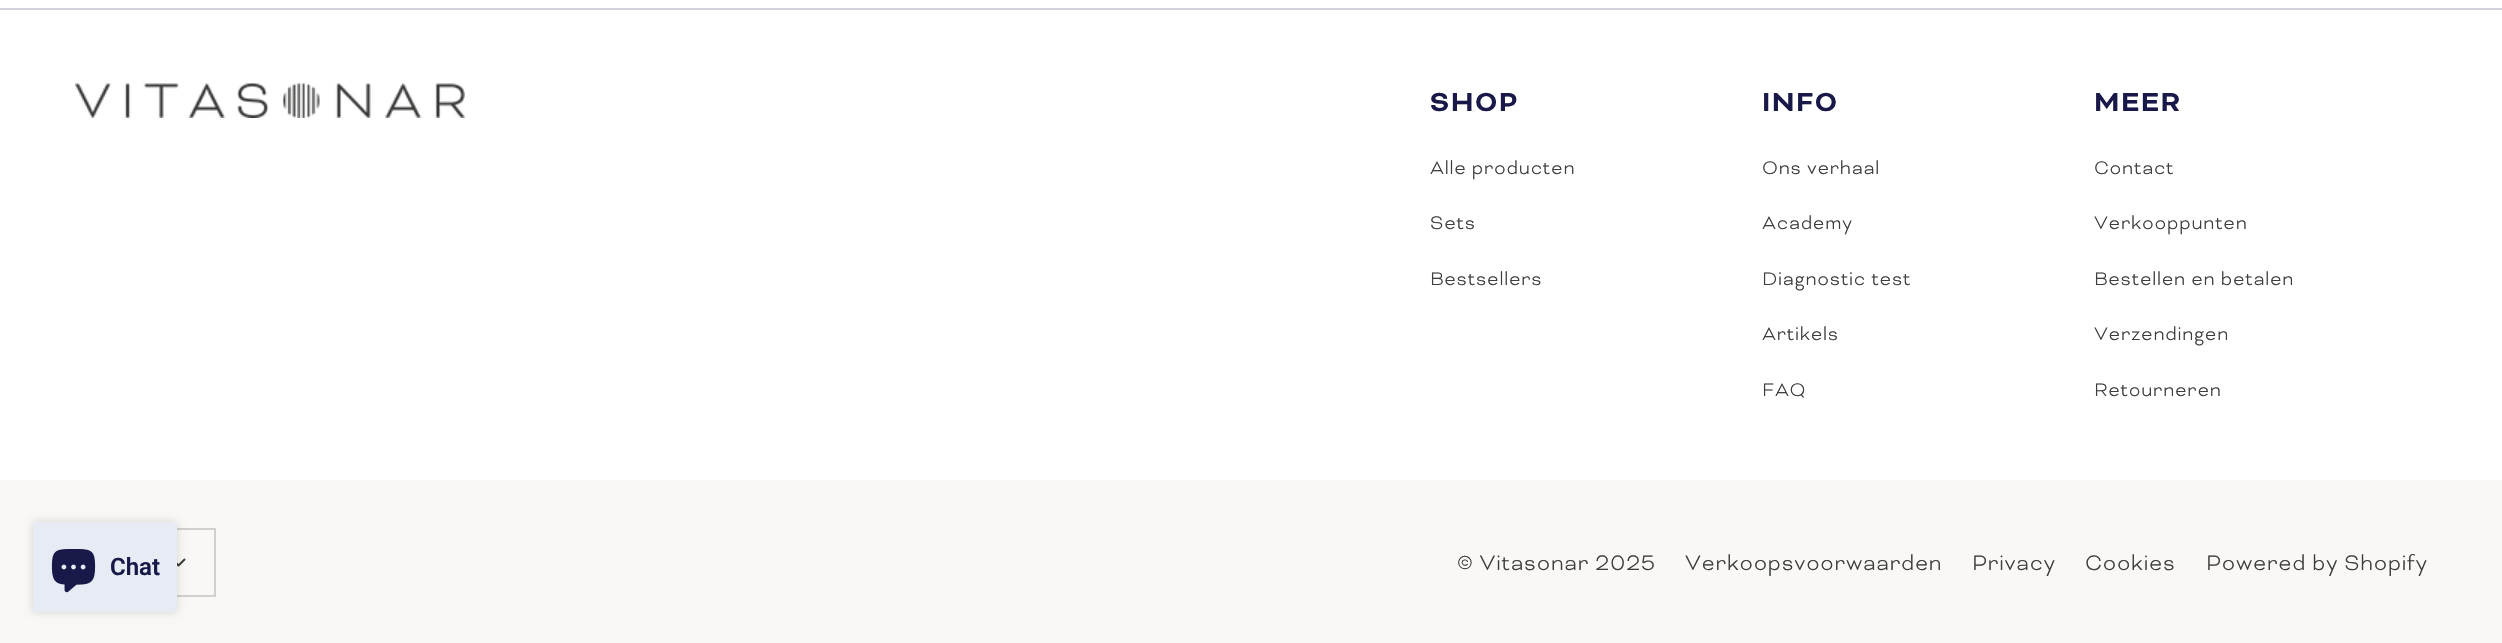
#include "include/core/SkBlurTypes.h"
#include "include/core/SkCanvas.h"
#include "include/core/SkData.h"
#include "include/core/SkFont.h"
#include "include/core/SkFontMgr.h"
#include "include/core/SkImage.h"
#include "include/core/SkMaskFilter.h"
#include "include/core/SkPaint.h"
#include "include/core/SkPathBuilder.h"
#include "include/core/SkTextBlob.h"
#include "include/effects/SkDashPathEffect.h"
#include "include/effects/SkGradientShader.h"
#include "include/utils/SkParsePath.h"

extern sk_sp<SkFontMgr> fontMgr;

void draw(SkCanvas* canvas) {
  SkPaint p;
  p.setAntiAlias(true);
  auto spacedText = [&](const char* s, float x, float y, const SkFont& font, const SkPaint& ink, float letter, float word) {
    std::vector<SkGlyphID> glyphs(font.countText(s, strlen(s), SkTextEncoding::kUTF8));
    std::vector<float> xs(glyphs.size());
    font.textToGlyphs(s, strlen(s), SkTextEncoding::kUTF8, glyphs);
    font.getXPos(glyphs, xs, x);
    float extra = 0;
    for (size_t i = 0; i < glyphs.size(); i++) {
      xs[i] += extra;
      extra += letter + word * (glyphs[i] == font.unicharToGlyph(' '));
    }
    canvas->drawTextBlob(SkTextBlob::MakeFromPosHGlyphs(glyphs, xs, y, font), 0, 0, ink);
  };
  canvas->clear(SK_ColorWHITE);
  p.setColor(SkColorSetRGB(249, 248, 244));
  canvas->drawRect(SkRect::MakeLTRB(0, 480, 2502, 643), p);
  p.setStyle(SkPaint::kStroke_Style);
  p.setStrokeWidth(2);
  p.setColor(SkColorSetRGB(209, 208, 206));
  canvas->drawRect(SkRect::MakeLTRB(76, 529, 215, 596), p);
  p.setStrokeCap(SkPaint::kRound_Cap);
  p.setStrokeJoin(SkPaint::kRound_Join);
  p.setColor(SkColorSetRGB(61, 61, 60));
  canvas->drawPath(SkPathBuilder().moveTo(172.5f, 559.5f).lineTo(178.5f, 565.5f).lineTo(184.5f, 559.5f).detach(), p);
  p.setStyle(SkPaint::kFill_Style);
  p.setColor(SkColorSetARGB(38, 0, 0, 0));
  p.setMaskFilter(SkMaskFilter::MakeBlur(kNormal_SkBlurStyle, 4));
  canvas->drawRect(SkRect::MakeLTRB(33, 522, 177, 612), p);
  p.setMaskFilter(nullptr);
  p.setColor(SkColorSetRGB(230, 235, 244));
  canvas->drawRect(SkRect::MakeLTRB(33, 522, 177, 612), p);
  canvas->drawImageRect(SkImages::DeferredFromEncodedData(SkData::MakeFromFileName("images/1.png")), SkRect::MakeLTRB(51, 549, 96, 593), SkSamplingOptions());
  p.setColor(SkColorSetRGB(209, 209, 219));
  canvas->drawRect(SkRect::MakeLTRB(0, 8, 2502, 10), p);
  canvas->drawImageRect(SkImages::DeferredFromEncodedData(SkData::MakeFromFileName("images/2.png")), SkRect::MakeLTRB(75, 83, 465, 118), SkSamplingOptions());
  SkFont font1(fontMgr->matchFamilyStyle("Roboto", SkFontStyle(600, SkFontStyle::kNormal_Width, SkFontStyle::kUpright_Slant)), 24);
  font1.setSubpixel(true);
  p.setColor(SkColorSetRGB(25, 25, 73));
  canvas->drawString("Chat", 110, 575, font1, p);
  SkFont font2(fontMgr->matchFamilyStyle("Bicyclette", SkFontStyle::Bold()), 30);
  font2.setSubpixel(true);
  spacedText("SHOP", 1430, 111, font2, p, 1.5f, 0);
  SkFont font3(fontMgr->matchFamilyStyle("Bicyclette", SkFontStyle(300, SkFontStyle::kNormal_Width, SkFontStyle::kUpright_Slant)), 21);
  font3.setSubpixel(true);
  p.setColor(SkColorSetRGB(61, 61, 60));
  spacedText("Alle producten", 1430, 174, font3, p, 0.75f, 0);
  spacedText("Sets", 1430, 229, font3, p, 0.75f, 0);
  spacedText("Bestsellers", 1430, 285, font3, p, 0.75f, 0);
  p.setColor(SkColorSetRGB(25, 25, 73));
  spacedText("INFO", 1762, 111, font2, p, 1.5f, 0);
  p.setColor(SkColorSetRGB(61, 61, 60));
  spacedText("Ons verhaal", 1762, 174, font3, p, 0.75f, 0);
  spacedText("Academy", 1762, 229, font3, p, 0.75f, 0);
  spacedText("Diagnostic test", 1762, 285, font3, p, 0.75f, 0);
  spacedText("Artikels", 1762, 340, font3, p, 0.75f, 0);
  spacedText("FAQ", 1762, 396, font3, p, 0.75f, 0);
  p.setColor(SkColorSetRGB(25, 25, 73));
  spacedText("MEER", 2094, 111, font2, p, 1.5f, 0);
  p.setColor(SkColorSetRGB(61, 61, 60));
  spacedText("Contact", 2094, 174, font3, p, 0.75f, 0);
  spacedText("Verkooppunten", 2094, 229, font3, p, 0.75f, 0);
  spacedText("Bestellen en betalen", 2094, 285, font3, p, 0.75f, 0);
  spacedText("Verzendingen", 2094, 340, font3, p, 0.75f, 0);
  spacedText("Retourneren", 2094, 396, font3, p, 0.75f, 0);
  SkFont font4(fontMgr->matchFamilyStyle("Bicyclette", SkFontStyle(300, SkFontStyle::kNormal_Width, SkFontStyle::kUpright_Slant)), 24);
  font4.setSubpixel(true);
  spacedText("© Vitasonar 2025", 1457, 570, font4, p, 0.75f, 0);
  spacedText("Verkoopsvoorwaarden", 1685, 570, font4, p, 0.75f, 0);
  spacedText("Privacy", 1972, 570, font4, p, 0.75f, 0);
  spacedText("Cookies", 2085, 570, font4, p, 0.75f, 0);
  spacedText("Powered by Shopify", 2206, 570, font4, p, 0.75f, 0);
}
